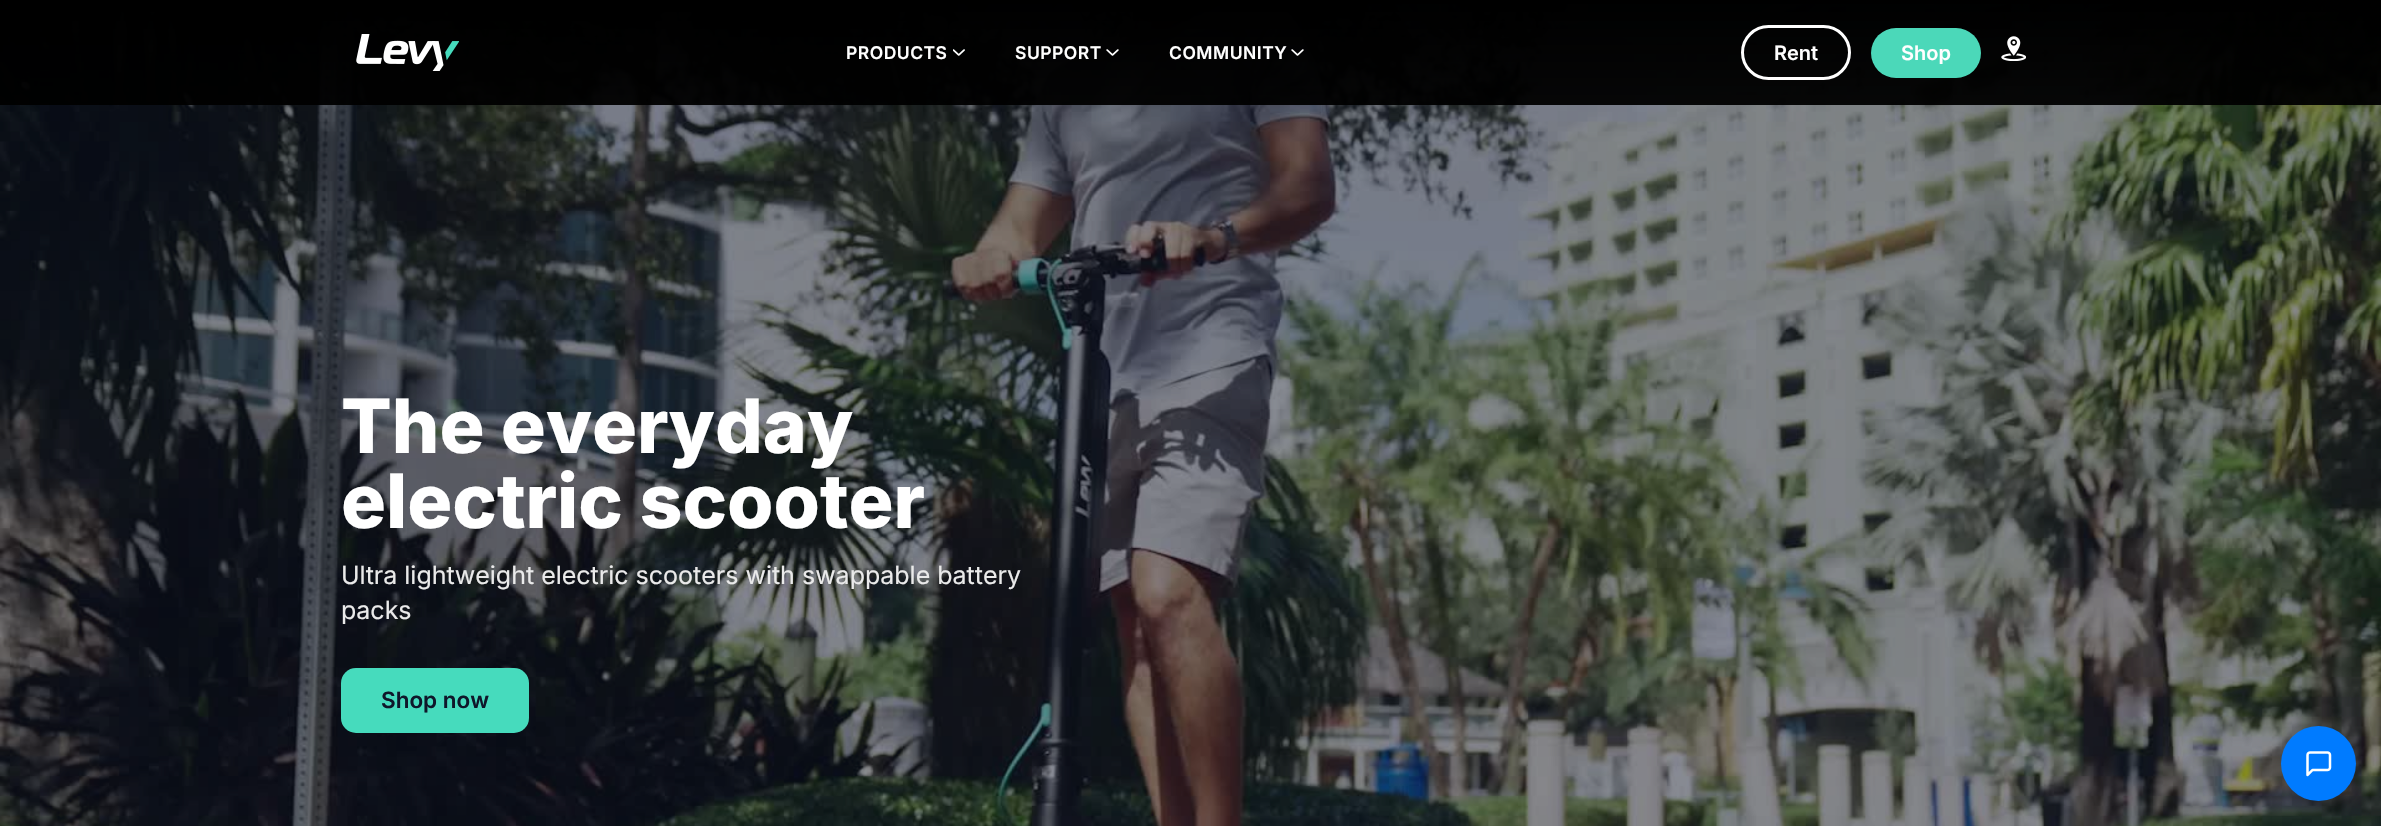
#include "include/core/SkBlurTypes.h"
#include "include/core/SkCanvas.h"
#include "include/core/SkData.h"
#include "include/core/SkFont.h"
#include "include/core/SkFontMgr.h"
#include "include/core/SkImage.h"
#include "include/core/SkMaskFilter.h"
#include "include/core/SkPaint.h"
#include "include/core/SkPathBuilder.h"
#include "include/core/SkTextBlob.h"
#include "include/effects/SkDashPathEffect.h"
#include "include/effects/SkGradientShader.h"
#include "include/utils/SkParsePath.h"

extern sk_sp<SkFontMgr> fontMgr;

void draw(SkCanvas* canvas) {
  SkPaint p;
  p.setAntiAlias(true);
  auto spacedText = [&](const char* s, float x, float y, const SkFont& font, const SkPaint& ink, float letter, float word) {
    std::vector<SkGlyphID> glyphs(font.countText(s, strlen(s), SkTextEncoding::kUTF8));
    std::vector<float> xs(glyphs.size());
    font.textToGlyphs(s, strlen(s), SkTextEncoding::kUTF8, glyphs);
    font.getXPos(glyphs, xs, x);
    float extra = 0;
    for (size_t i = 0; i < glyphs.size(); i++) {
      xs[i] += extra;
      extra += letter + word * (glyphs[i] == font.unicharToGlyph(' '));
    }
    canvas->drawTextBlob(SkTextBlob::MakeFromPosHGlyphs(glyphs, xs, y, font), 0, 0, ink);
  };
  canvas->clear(SK_ColorWHITE);
  canvas->drawImageRect(SkImages::DeferredFromEncodedData(SkData::MakeFromFileName("images/6.png")), SkRect::MakeLTRB(0, 0, 2381, 826), SkSamplingOptions());
  canvas->drawImageRect(SkImages::DeferredFromEncodedData(SkData::MakeFromFileName("images/1.png")), SkRect::MakeLTRB(356, 34, 459, 71), SkSamplingOptions());
  canvas->drawImageRect(SkImages::DeferredFromEncodedData(SkData::MakeFromFileName("images/2.png")), SkRect::MakeLTRB(953, 49, 965, 56), SkSamplingOptions());
  canvas->drawImageRect(SkImages::DeferredFromEncodedData(SkData::MakeFromFileName("images/3.png")), SkRect::MakeLTRB(1106, 49, 1119, 56), SkSamplingOptions());
  canvas->drawImageRect(SkImages::DeferredFromEncodedData(SkData::MakeFromFileName("images/4.png")), SkRect::MakeLTRB(1291, 49, 1304, 56), SkSamplingOptions());
  p.setStyle(SkPaint::kStroke_Style);
  p.setStrokeWidth(3);
  p.setColor(SK_ColorWHITE);
  canvas->drawRoundRect(SkRect::MakeLTRB(1742.5f, 26.5f, 1849.5f, 78.5f), 26, 26, p);
  p.setStyle(SkPaint::kFill_Style);
  p.setColor(SkColorSetRGB(75, 216, 185));
  canvas->drawRoundRect(SkRect::MakeLTRB(1871, 28, 1981, 78), 25, 25, p);
  canvas->drawImageRect(SkImages::DeferredFromEncodedData(SkData::MakeFromFileName("images/5.png")), SkRect::MakeLTRB(2001, 36, 2026, 61), SkSamplingOptions());
  p.setColor(SkColorSetRGB(70, 219, 189));
  canvas->drawRoundRect(SkRect::MakeLTRB(341, 668, 529, 733), 15, 15, p);
  p.setColor(SkColorSetARGB(38, 0, 0, 0));
  p.setMaskFilter(SkMaskFilter::MakeBlur(kNormal_SkBlurStyle, 7.5f));
  canvas->drawRoundRect(SkRect::MakeLTRB(2281, 731, 2356, 806), 37.5f, 37.5f, p);
  p.setMaskFilter(nullptr);
  p.setColor(SkColorSetRGB(0, 123, 255));
  canvas->drawCircle(2318.5f, 763.5f, 37.5f, p);
  canvas->drawImageRect(SkImages::DeferredFromEncodedData(SkData::MakeFromFileName("images/7.png")), SkRect::MakeLTRB(2306, 751, 2332, 777), SkSamplingOptions());
  SkFont font1(fontMgr->matchFamilyStyle("Inter", SkFontStyle(600, SkFontStyle::kNormal_Width, SkFontStyle::kUpright_Slant)), 17.5f);
  font1.setSubpixel(true);
  p.setColor(SK_ColorWHITE);
  spacedText("PRODUCTS", 846, 59, font1, p, 0.5f, 0);
  spacedText("SUPPORT", 1015, 59, font1, p, 0.5f, 0);
  spacedText("COMMUNITY", 1169, 59, font1, p, 0.5f, 0);
  SkFont font2(fontMgr->matchFamilyStyle("Inter", SkFontStyle(600, SkFontStyle::kNormal_Width, SkFontStyle::kUpright_Slant)), 20);
  font2.setSubpixel(true);
  canvas->drawString("Rent", 1774, 60, font2, p);
  canvas->drawString("Shop", 1901, 60, font2, p);
  SkFont font3(fontMgr->matchFamilyStyle("Inter", SkFontStyle(800, SkFontStyle::kNormal_Width, SkFontStyle::kUpright_Slant)), 75);
  font3.setSubpixel(true);
  canvas->drawString("The everyday", 341, 453, font3, p);
  canvas->drawString("electric scooter", 341, 528, font3, p);
  SkFont font4(fontMgr->matchFamilyStyle("Inter", SkFontStyle::Normal()), 25);
  font4.setSubpixel(true);
  p.setColor(SkColorSetRGB(234, 234, 234));
  canvas->drawString("Ultra lightweight electric scooters with swappable battery", 341, 584, font4, p);
  canvas->drawString("packs", 341, 619, font4, p);
  SkFont font5(fontMgr->matchFamilyStyle("Inter", SkFontStyle(600, SkFontStyle::kNormal_Width, SkFontStyle::kUpright_Slant)), 22.5f);
  font5.setSubpixel(true);
  p.setColor(SkColorSetRGB(15, 23, 42));
  canvas->drawString("Shop now", 381, 708, font5, p);
}
